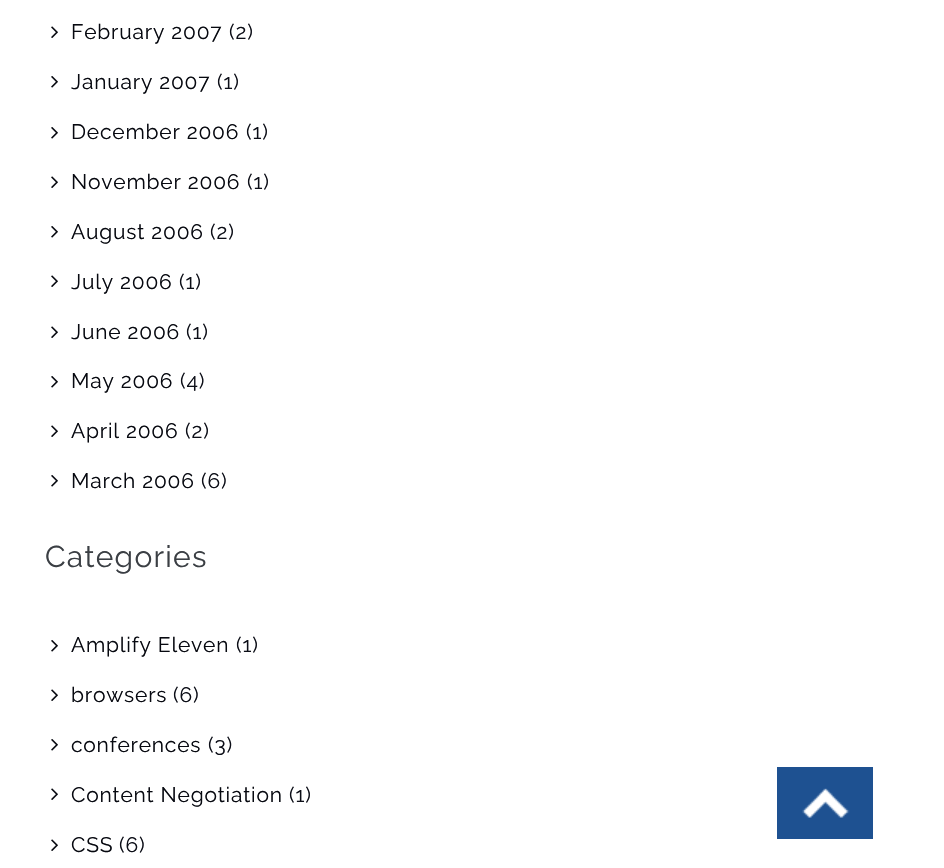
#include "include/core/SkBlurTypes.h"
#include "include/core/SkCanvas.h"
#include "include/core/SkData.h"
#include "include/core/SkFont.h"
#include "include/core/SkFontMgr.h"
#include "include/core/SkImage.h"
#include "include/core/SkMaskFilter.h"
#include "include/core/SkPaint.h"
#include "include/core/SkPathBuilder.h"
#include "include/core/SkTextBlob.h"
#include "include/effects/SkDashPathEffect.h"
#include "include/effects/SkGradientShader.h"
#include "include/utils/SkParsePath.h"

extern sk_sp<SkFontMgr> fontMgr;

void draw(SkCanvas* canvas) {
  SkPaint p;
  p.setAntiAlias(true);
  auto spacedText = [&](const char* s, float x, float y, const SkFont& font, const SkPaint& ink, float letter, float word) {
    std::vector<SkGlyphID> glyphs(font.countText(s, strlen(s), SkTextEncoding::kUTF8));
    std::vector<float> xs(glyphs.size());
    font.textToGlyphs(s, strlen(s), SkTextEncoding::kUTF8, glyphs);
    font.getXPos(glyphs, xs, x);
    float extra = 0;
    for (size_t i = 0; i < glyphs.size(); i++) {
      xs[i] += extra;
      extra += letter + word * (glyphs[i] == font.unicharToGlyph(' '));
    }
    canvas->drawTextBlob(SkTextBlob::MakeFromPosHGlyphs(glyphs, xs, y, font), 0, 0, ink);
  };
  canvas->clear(SK_ColorWHITE);
  canvas->drawImageRect(SkImages::DeferredFromEncodedData(SkData::MakeFromFileName("images/1.png")), SkRect::MakeLTRB(51, 26, 58, 38), SkSamplingOptions());
  canvas->drawImageRect(SkImages::DeferredFromEncodedData(SkData::MakeFromFileName("images/2.png")), SkRect::MakeLTRB(51, 76, 58, 88), SkSamplingOptions());
  canvas->drawImageRect(SkImages::DeferredFromEncodedData(SkData::MakeFromFileName("images/2.png")), SkRect::MakeLTRB(51, 127, 58, 139), SkSamplingOptions());
  canvas->drawImageRect(SkImages::DeferredFromEncodedData(SkData::MakeFromFileName("images/1.png")), SkRect::MakeLTRB(51, 176, 58, 188), SkSamplingOptions());
  canvas->drawImageRect(SkImages::DeferredFromEncodedData(SkData::MakeFromFileName("images/2.png")), SkRect::MakeLTRB(51, 226, 58, 238), SkSamplingOptions());
  canvas->drawImageRect(SkImages::DeferredFromEncodedData(SkData::MakeFromFileName("images/1.png")), SkRect::MakeLTRB(51, 275, 58, 287), SkSamplingOptions());
  canvas->drawImageRect(SkImages::DeferredFromEncodedData(SkData::MakeFromFileName("images/1.png")), SkRect::MakeLTRB(51, 326, 58, 338), SkSamplingOptions());
  canvas->drawImageRect(SkImages::DeferredFromEncodedData(SkData::MakeFromFileName("images/2.png")), SkRect::MakeLTRB(51, 376, 58, 388), SkSamplingOptions());
  canvas->drawImageRect(SkImages::DeferredFromEncodedData(SkData::MakeFromFileName("images/1.png")), SkRect::MakeLTRB(51, 425, 58, 437), SkSamplingOptions());
  canvas->drawImageRect(SkImages::DeferredFromEncodedData(SkData::MakeFromFileName("images/2.png")), SkRect::MakeLTRB(51, 475, 58, 487), SkSamplingOptions());
  canvas->drawImageRect(SkImages::DeferredFromEncodedData(SkData::MakeFromFileName("images/2.png")), SkRect::MakeLTRB(51, 640, 58, 652), SkSamplingOptions());
  canvas->drawImageRect(SkImages::DeferredFromEncodedData(SkData::MakeFromFileName("images/1.png")), SkRect::MakeLTRB(51, 689, 58, 701), SkSamplingOptions());
  canvas->drawImageRect(SkImages::DeferredFromEncodedData(SkData::MakeFromFileName("images/2.png")), SkRect::MakeLTRB(51, 739, 58, 751), SkSamplingOptions());
  canvas->drawImageRect(SkImages::DeferredFromEncodedData(SkData::MakeFromFileName("images/1.png")), SkRect::MakeLTRB(51, 788, 58, 800), SkSamplingOptions());
  canvas->drawImageRect(SkImages::DeferredFromEncodedData(SkData::MakeFromFileName("images/1.png")), SkRect::MakeLTRB(51, 839, 58, 851), SkSamplingOptions());
  p.setColor(SkColorSetRGB(30, 81, 145));
  canvas->drawRect(SkRect::MakeLTRB(777, 767, 873, 839), p);
  canvas->drawImageRect(SkImages::DeferredFromEncodedData(SkData::MakeFromFileName("images/3.png")), SkRect::MakeLTRB(802, 788, 850, 818), SkSamplingOptions());
  SkFont font1(fontMgr->matchFamilyStyle("Raleway", SkFontStyle::Normal()), 21);
  font1.setSubpixel(true);
  p.setColor(SkColorSetRGB(7, 9, 16));
  spacedText("February 2007", 71, 39, font1, p, 0.8f, 0);
  p.setColor(SkColorSetRGB(12, 14, 23));
  spacedText("(2)", 229, 39, font1, p, 0.8f, 0);
  p.setColor(SkColorSetRGB(7, 9, 16));
  spacedText("January 2007", 71, 89, font1, p, 0.8f, 0);
  p.setColor(SkColorSetRGB(12, 14, 23));
  spacedText("(1)", 217, 89, font1, p, 0.8f, 0);
  p.setColor(SkColorSetRGB(7, 9, 16));
  spacedText("December 2006", 71, 139, font1, p, 0.8f, 0);
  p.setColor(SkColorSetRGB(12, 14, 23));
  spacedText("(1)", 246, 139, font1, p, 0.8f, 0);
  p.setColor(SkColorSetRGB(7, 9, 16));
  spacedText("November 2006", 71, 189, font1, p, 0.8f, 0);
  p.setColor(SkColorSetRGB(12, 14, 23));
  spacedText("(1)", 247, 189, font1, p, 0.8f, 0);
  p.setColor(SkColorSetRGB(7, 9, 16));
  spacedText("August 2006", 71, 239, font1, p, 0.8f, 0);
  p.setColor(SkColorSetRGB(12, 14, 23));
  spacedText("(2)", 210, 239, font1, p, 0.8f, 0);
  p.setColor(SkColorSetRGB(7, 9, 16));
  spacedText("July 2006", 71, 289, font1, p, 0.8f, 0);
  p.setColor(SkColorSetRGB(12, 14, 23));
  spacedText("(1)", 179, 289, font1, p, 0.8f, 0);
  p.setColor(SkColorSetRGB(7, 9, 16));
  spacedText("June 2006", 71, 339, font1, p, 0.8f, 0);
  p.setColor(SkColorSetRGB(12, 14, 23));
  spacedText("(1)", 186, 339, font1, p, 0.8f, 0);
  p.setColor(SkColorSetRGB(7, 9, 16));
  spacedText("May 2006", 71, 388, font1, p, 0.8f, 0);
  p.setColor(SkColorSetRGB(12, 14, 23));
  spacedText("(4)", 180, 388, font1, p, 0.8f, 0);
  p.setColor(SkColorSetRGB(7, 9, 16));
  spacedText("April 2006", 71, 438, font1, p, 0.8f, 0);
  p.setColor(SkColorSetRGB(12, 14, 23));
  spacedText("(2)", 185, 438, font1, p, 0.8f, 0);
  p.setColor(SkColorSetRGB(7, 9, 16));
  spacedText("March 2006", 71, 488, font1, p, 0.8f, 0);
  p.setColor(SkColorSetRGB(12, 14, 23));
  spacedText("(6)", 201, 488, font1, p, 0.8f, 0);
  SkFont font2(fontMgr->matchFamilyStyle("Raleway", SkFontStyle::Normal()), 30);
  font2.setSubpixel(true);
  p.setColor(SkColorSetRGB(59, 63, 68));
  spacedText("Categories", 45, 567, font2, p, 1.25f, 0);
  p.setColor(SkColorSetRGB(7, 9, 16));
  spacedText("Amplify Eleven", 71, 652, font1, p, 0.8f, 0);
  p.setColor(SkColorSetRGB(12, 14, 23));
  spacedText("(1)", 236, 652, font1, p, 0.8f, 0);
  p.setColor(SkColorSetRGB(7, 9, 16));
  spacedText("browsers", 71, 702, font1, p, 0.8f, 0);
  p.setColor(SkColorSetRGB(12, 14, 23));
  spacedText("(6)", 173, 702, font1, p, 0.8f, 0);
  p.setColor(SkColorSetRGB(7, 9, 16));
  spacedText("conferences", 71, 752, font1, p, 0.8f, 0);
  p.setColor(SkColorSetRGB(12, 14, 23));
  spacedText("(3)", 208, 752, font1, p, 0.8f, 0);
  p.setColor(SkColorSetRGB(7, 9, 16));
  spacedText("Content Negotiation", 71, 802, font1, p, 0.8f, 0);
  p.setColor(SkColorSetRGB(12, 14, 23));
  spacedText("(1)", 289, 802, font1, p, 0.8f, 0);
  p.setColor(SkColorSetRGB(7, 9, 16));
  spacedText("CSS", 71, 852, font1, p, 0.8f, 0);
  p.setColor(SkColorSetRGB(12, 14, 23));
  spacedText("(6)", 119, 852, font1, p, 0.8f, 0);
}
